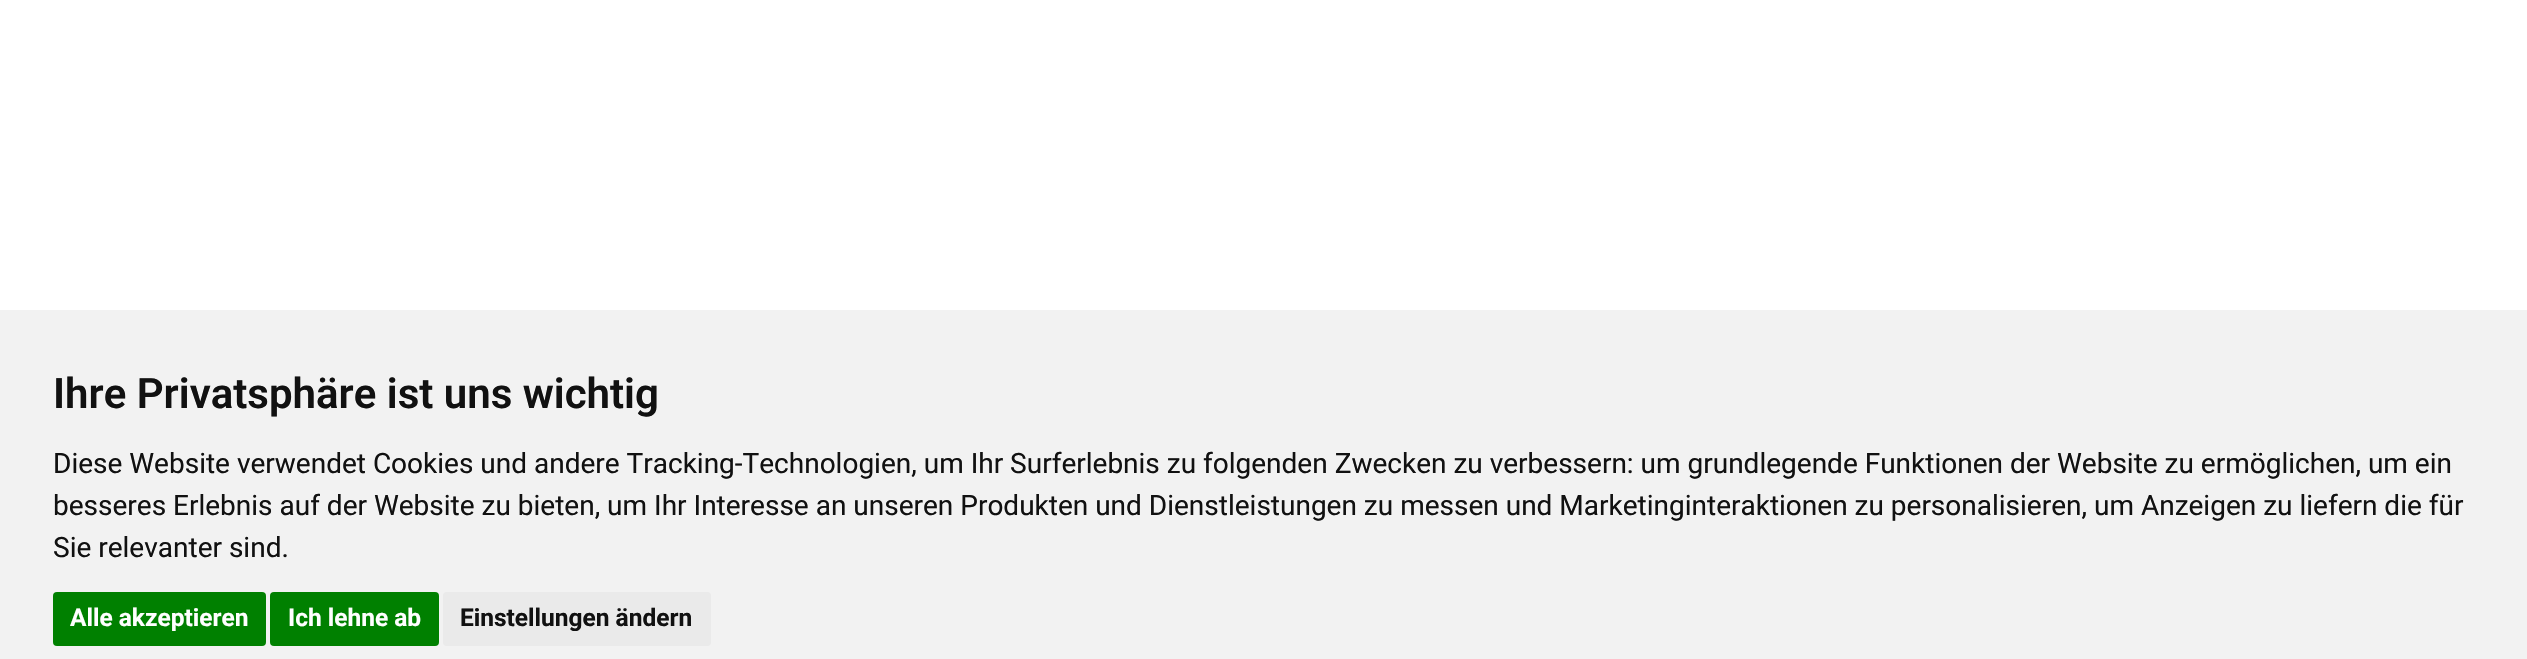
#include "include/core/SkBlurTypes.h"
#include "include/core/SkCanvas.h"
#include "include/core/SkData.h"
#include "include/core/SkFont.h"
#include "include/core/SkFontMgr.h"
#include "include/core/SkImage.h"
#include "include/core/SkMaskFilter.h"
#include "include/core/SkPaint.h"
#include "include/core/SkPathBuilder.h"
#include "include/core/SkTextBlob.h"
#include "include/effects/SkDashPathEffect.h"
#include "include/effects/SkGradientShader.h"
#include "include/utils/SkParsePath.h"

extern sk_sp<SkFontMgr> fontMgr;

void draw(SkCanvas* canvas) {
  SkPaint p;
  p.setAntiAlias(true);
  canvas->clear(SK_ColorWHITE);
  p.setColor(SkColorSetRGB(242, 242, 242));
  canvas->drawRect(SkRect::MakeLTRB(0, 310, 2527, 659), p);
  p.setColor(SkColorSetRGB(0, 128, 0));
  canvas->drawRoundRect(SkRect::MakeLTRB(53, 592, 266, 646), 4, 4, p);
  canvas->drawRoundRect(SkRect::MakeLTRB(270, 592, 439, 646), 4, 4, p);
  p.setColor(SkColorSetRGB(234, 234, 234));
  canvas->drawRoundRect(SkRect::MakeLTRB(443, 592, 711, 646), 4, 4, p);
  SkFont font1(fontMgr->matchFamilyStyle("Roboto", SkFontStyle(600, SkFontStyle::kNormal_Width, SkFontStyle::kUpright_Slant)), 42);
  font1.setSubpixel(true);
  p.setColor(SkColorSetRGB(17, 17, 17));
  canvas->drawString("Ihre Privatsphäre ist uns wichtig", 53, 408, font1, p);
  SkFont font2(fontMgr->matchFamilyStyle("Roboto", SkFontStyle::Normal()), 28);
  font2.setSubpixel(true);
  canvas->drawString("Diese Website verwendet Cookies und andere Tracking-Technologien, um Ihr Surferlebnis zu folgenden Zwecken zu verbessern: um grundlegende Funktionen der Website zu ermöglichen, um ein", 53, 473, font2, p);
  canvas->drawString("besseres Erlebnis auf der Website zu bieten, um Ihr Interesse an unseren Produkten und Dienstleistungen zu messen und Marketinginteraktionen zu personalisieren, um Anzeigen zu liefern die für", 53, 515, font2, p);
  canvas->drawString("Sie relevanter sind.", 53, 557, font2, p);
  SkFont font3(fontMgr->matchFamilyStyle("Roboto", SkFontStyle::Bold()), 24.5f);
  font3.setSubpixel(true);
  p.setColor(SK_ColorWHITE);
  canvas->drawString("Alle akzeptieren", 70, 626, font3, p);
  canvas->drawString("Ich lehne ab", 288, 626, font3, p);
  p.setColor(SkColorSetRGB(17, 17, 17));
  canvas->drawString("Einstellungen ändern", 460, 626, font3, p);
}
